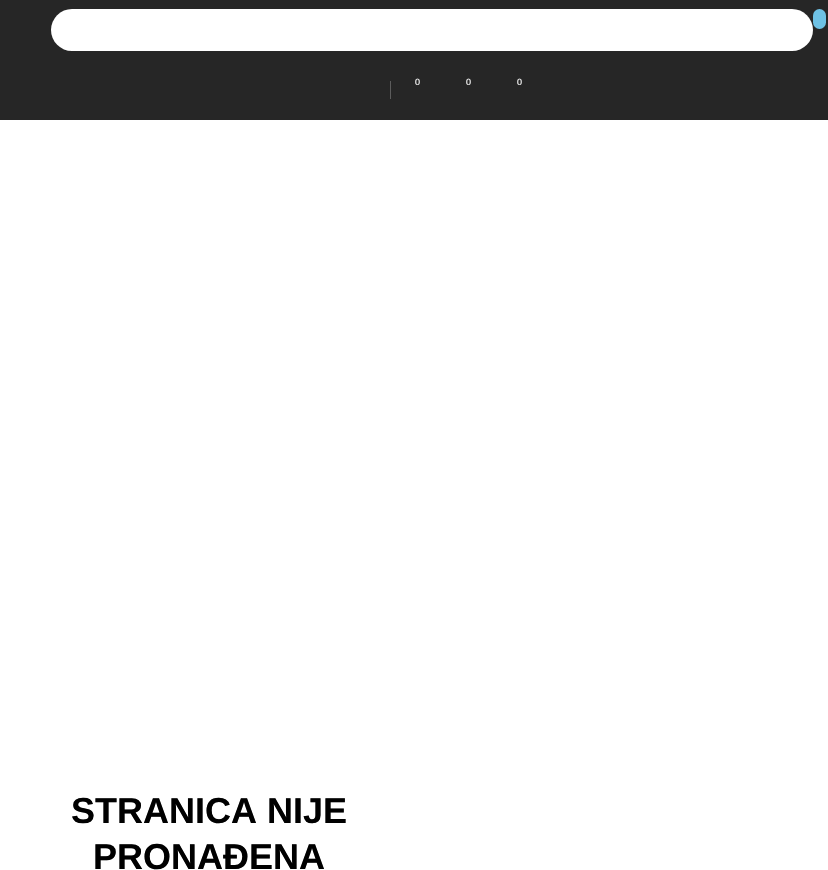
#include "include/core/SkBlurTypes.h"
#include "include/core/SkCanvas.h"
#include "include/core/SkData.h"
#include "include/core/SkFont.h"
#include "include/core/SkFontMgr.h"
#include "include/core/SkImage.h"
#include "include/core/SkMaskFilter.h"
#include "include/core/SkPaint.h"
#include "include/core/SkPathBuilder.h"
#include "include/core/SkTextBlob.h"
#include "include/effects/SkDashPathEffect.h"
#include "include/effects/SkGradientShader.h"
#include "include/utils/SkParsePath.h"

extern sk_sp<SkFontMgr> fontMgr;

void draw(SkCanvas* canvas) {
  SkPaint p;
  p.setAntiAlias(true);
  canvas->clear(SK_ColorWHITE);
  p.setColor(SkColorSetRGB(38, 38, 38));
  canvas->drawRect(SkRect::MakeLTRB(0, 0, 828, 120), p);
  p.setColor(SK_ColorWHITE);
  canvas->drawRoundRect(SkRect::MakeLTRB(51, 9, 813, 51), 21, 21, p);
  p.setColor(SkColorSetRGB(110, 193, 228));
  canvas->drawRoundRect(SkRect::MakeLTRB(813, 9, 826, 29), 6.5f, 6.5f, p);
  p.setColor(SkColorSetRGB(92, 92, 92));
  canvas->drawRect(SkRect::MakeLTRB(390, 81, 391, 99), p);
  SkFont font1(fontMgr->matchFamilyStyle("Liberation Sans", SkFontStyle::Normal()), 9);
  font1.setSubpixel(true);
  p.setColor(SK_ColorWHITE);
  canvas->drawString("0", 415, 85, font1, p);
  canvas->drawString("0", 466, 85, font1, p);
  canvas->drawString("0", 517, 85, font1, p);
  SkFont font2(fontMgr->matchFamilyStyle("Liberation Sans", SkFontStyle::Bold()), 36);
  font2.setSubpixel(true);
  p.setColor(SK_ColorBLACK);
  canvas->drawString("STRANICA NIJE", 71, 823, font2, p);
  canvas->drawString("PRONAĐENA", 93, 869, font2, p);
}
